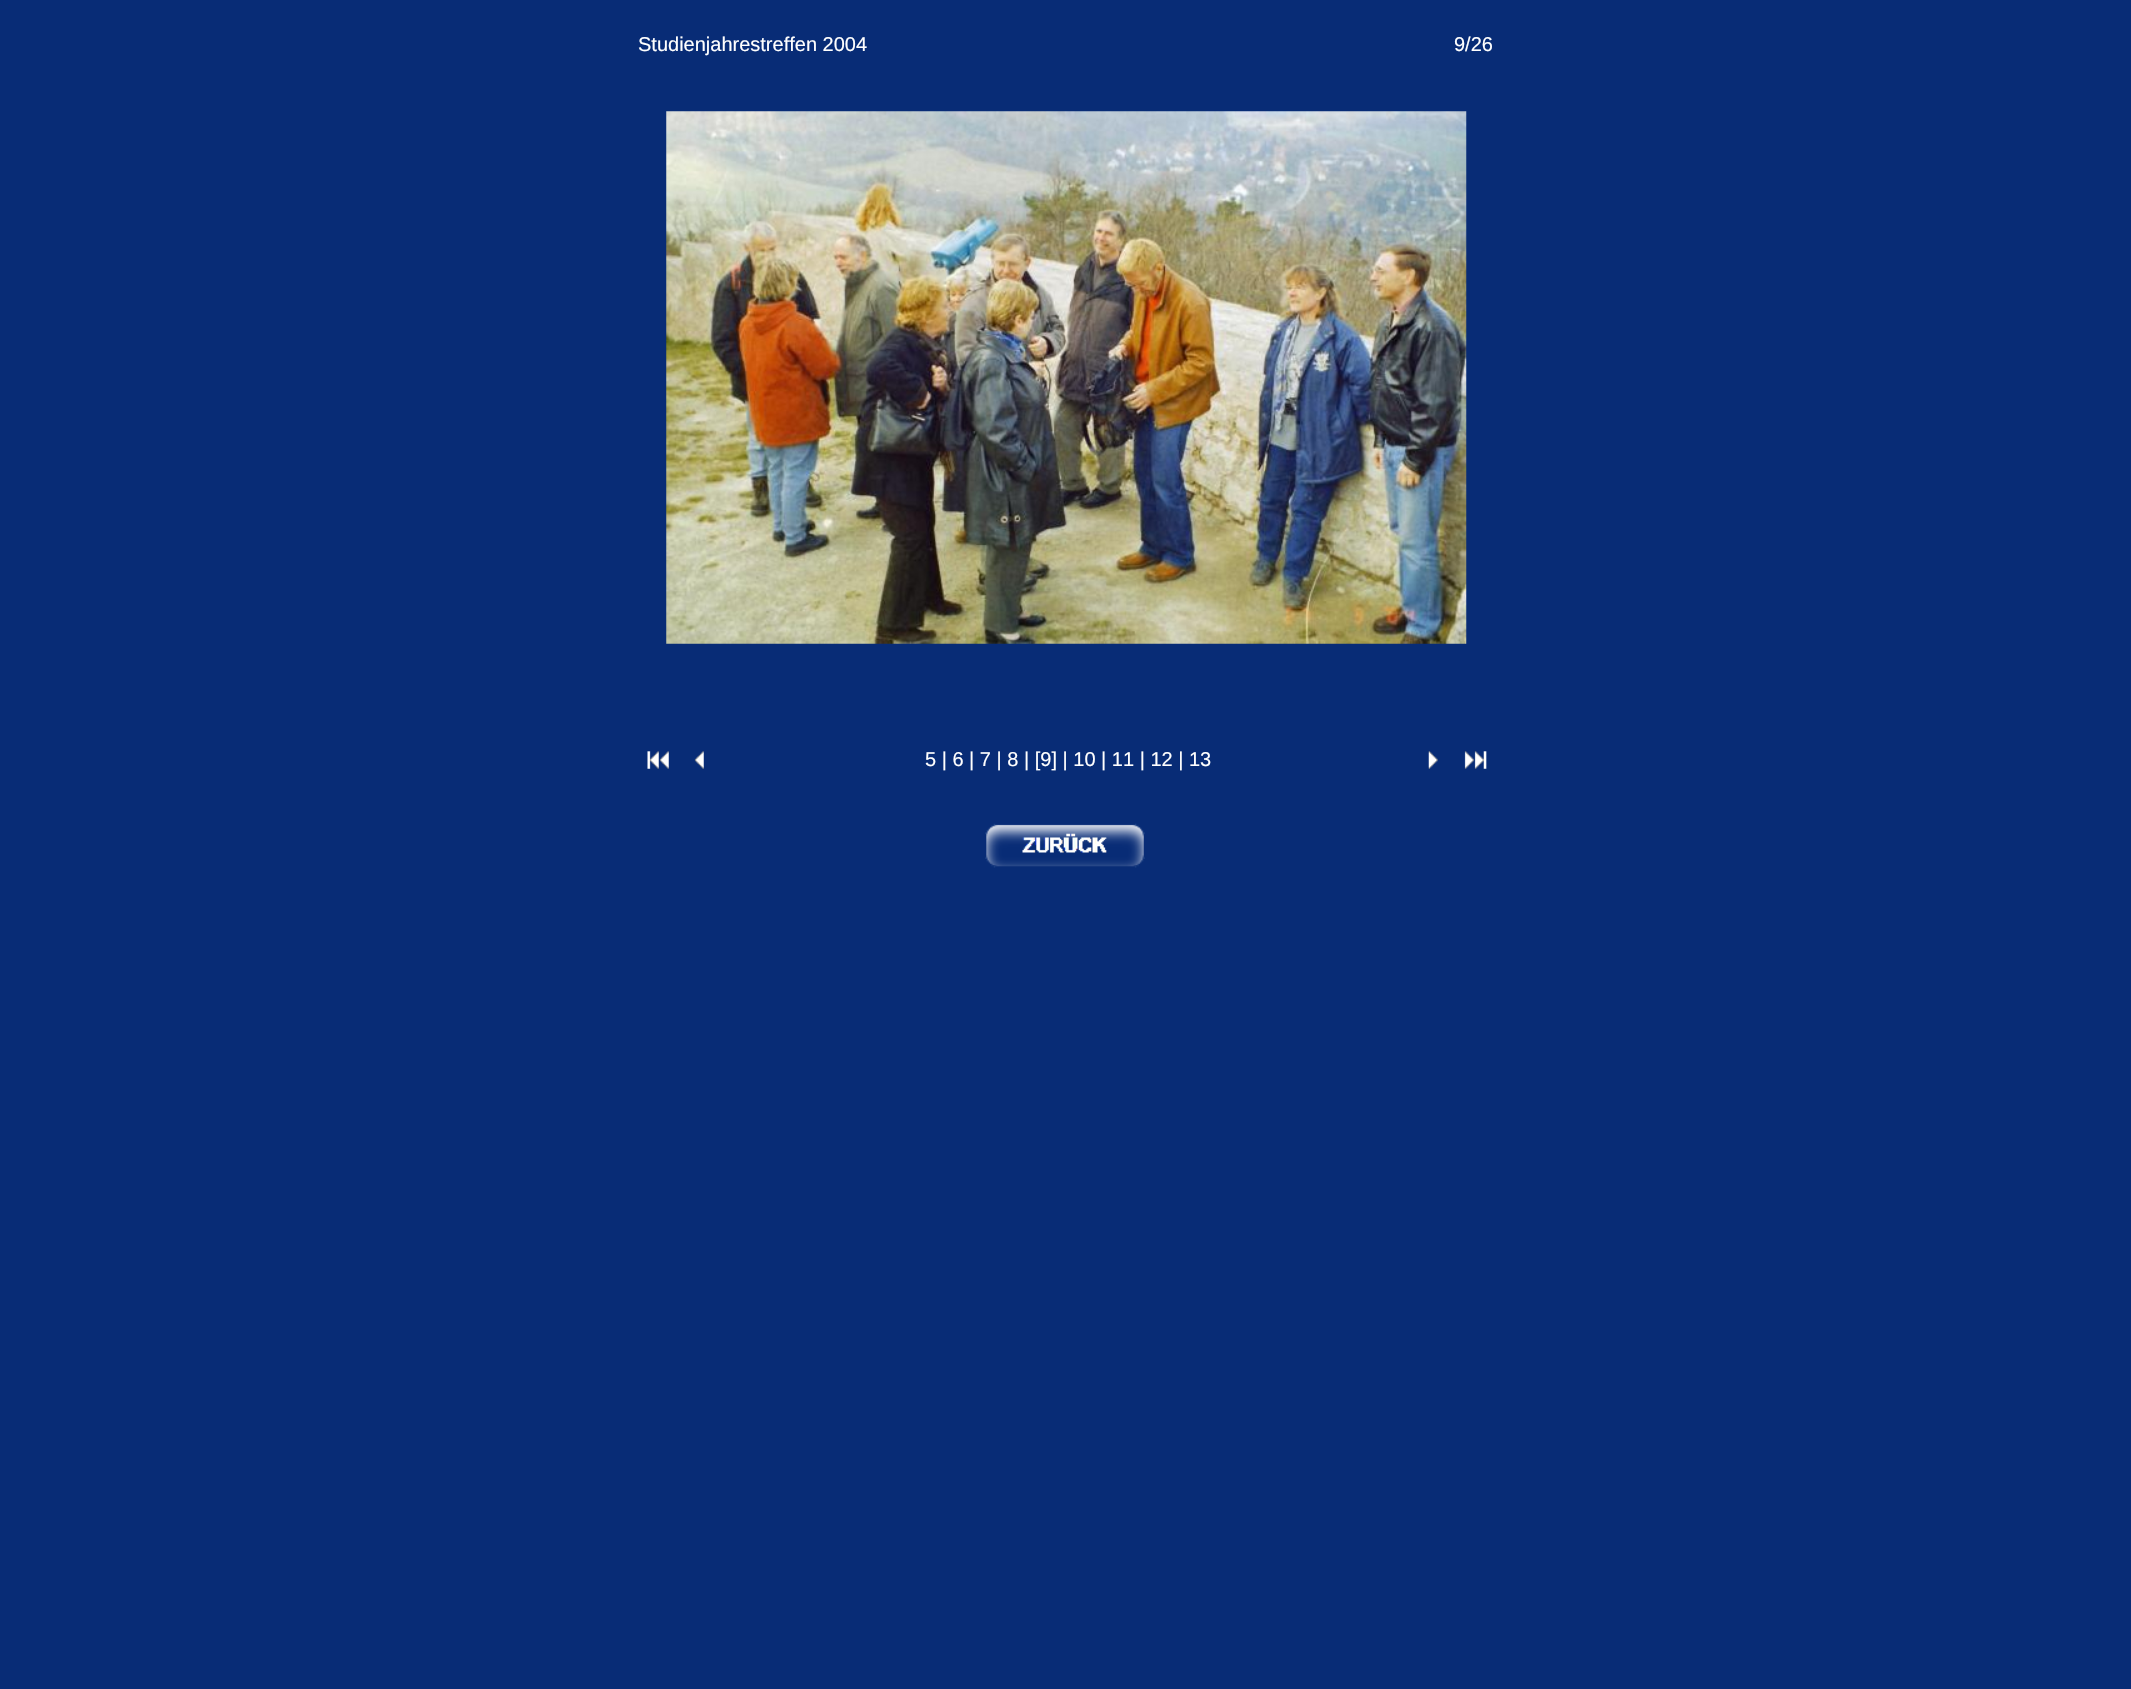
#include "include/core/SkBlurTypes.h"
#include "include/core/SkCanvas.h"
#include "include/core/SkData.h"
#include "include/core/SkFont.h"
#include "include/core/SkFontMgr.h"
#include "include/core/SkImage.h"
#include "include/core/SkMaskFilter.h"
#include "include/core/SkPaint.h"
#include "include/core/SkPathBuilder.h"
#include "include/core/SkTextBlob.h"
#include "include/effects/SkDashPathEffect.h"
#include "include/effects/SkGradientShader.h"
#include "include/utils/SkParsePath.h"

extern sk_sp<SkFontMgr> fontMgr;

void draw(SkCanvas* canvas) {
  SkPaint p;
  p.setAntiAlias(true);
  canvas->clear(SkColorSetRGB(8, 44, 118));
  canvas->drawImageRect(SkImages::DeferredFromEncodedData(SkData::MakeFromFileName("images/1.png")), SkRect::MakeLTRB(666, 111, 1467, 644), SkSamplingOptions());
  canvas->drawImageRect(SkImages::DeferredFromEncodedData(SkData::MakeFromFileName("images/2.png")), SkRect::MakeLTRB(647, 751, 669, 769), SkSamplingOptions());
  canvas->drawImageRect(SkImages::DeferredFromEncodedData(SkData::MakeFromFileName("images/3.png")), SkRect::MakeLTRB(694, 751, 704, 769), SkSamplingOptions());
  canvas->drawImageRect(SkImages::DeferredFromEncodedData(SkData::MakeFromFileName("images/4.png")), SkRect::MakeLTRB(1428, 751, 1438, 769), SkSamplingOptions());
  canvas->drawImageRect(SkImages::DeferredFromEncodedData(SkData::MakeFromFileName("images/5.png")), SkRect::MakeLTRB(1464, 751, 1487, 769), SkSamplingOptions());
  canvas->drawImageRect(SkImages::DeferredFromEncodedData(SkData::MakeFromFileName("images/6.png")), SkRect::MakeLTRB(985, 823, 1145, 868), SkSamplingOptions());
  SkFont font1(fontMgr->matchFamilyStyle("Liberation Sans", SkFontStyle::Normal()), 20);
  font1.setSubpixel(true);
  p.setColor(SK_ColorWHITE);
  canvas->drawString("Studienjahrestreffen 2004", 638, 51, font1, p);
  canvas->drawString("9/26", 1454, 51, font1, p);
  canvas->drawString("5 | 6 | 7 | 8 | [9] | 10 | 11 | 12 | 13", 925, 766, font1, p);
}
